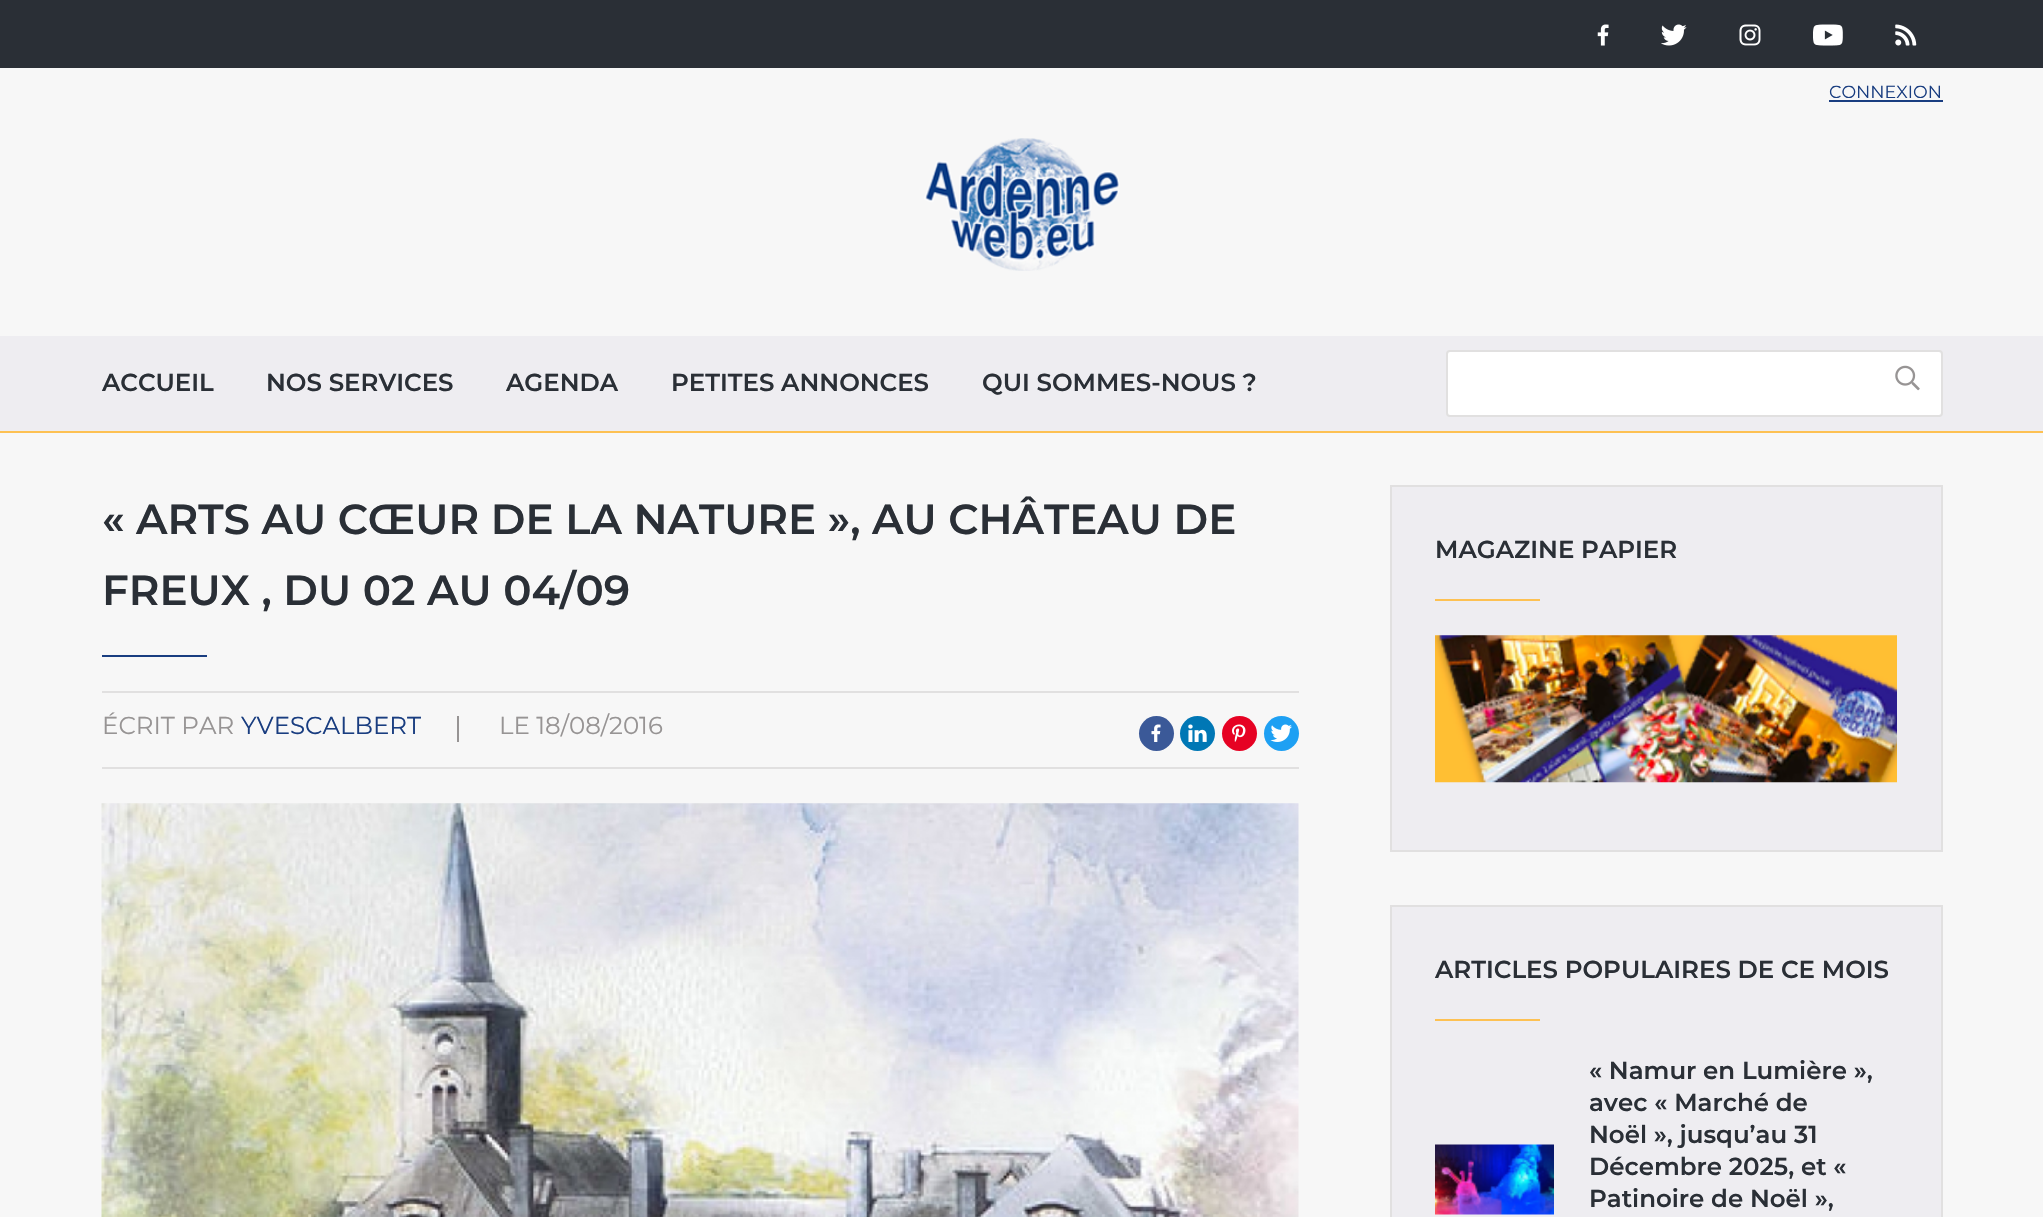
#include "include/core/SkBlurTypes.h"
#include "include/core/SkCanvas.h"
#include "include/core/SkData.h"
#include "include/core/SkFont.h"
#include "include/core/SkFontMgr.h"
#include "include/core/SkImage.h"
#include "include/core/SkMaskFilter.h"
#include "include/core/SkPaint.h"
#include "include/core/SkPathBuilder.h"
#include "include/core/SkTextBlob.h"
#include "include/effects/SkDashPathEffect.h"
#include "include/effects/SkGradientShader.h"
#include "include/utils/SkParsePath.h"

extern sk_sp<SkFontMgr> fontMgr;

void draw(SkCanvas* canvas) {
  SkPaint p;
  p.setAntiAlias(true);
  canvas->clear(SkColorSetRGB(247, 247, 247));
  p.setColor(SkColorSetRGB(42, 47, 54));
  canvas->drawRect(SkRect::MakeLTRB(0, 0, 2043, 68), p);
  canvas->drawImageRect(SkImages::DeferredFromEncodedData(SkData::MakeFromFileName("images/1.png")), SkRect::MakeLTRB(1597, 24, 1609, 46), SkSamplingOptions());
  canvas->drawImageRect(SkImages::DeferredFromEncodedData(SkData::MakeFromFileName("images/2.png")), SkRect::MakeLTRB(1661, 24, 1687, 46), SkSamplingOptions());
  canvas->drawImageRect(SkImages::DeferredFromEncodedData(SkData::MakeFromFileName("images/3.png")), SkRect::MakeLTRB(1739, 24, 1761, 46), SkSamplingOptions());
  canvas->drawImageRect(SkImages::DeferredFromEncodedData(SkData::MakeFromFileName("images/4.png")), SkRect::MakeLTRB(1813, 24, 1843, 46), SkSamplingOptions());
  canvas->drawImageRect(SkImages::DeferredFromEncodedData(SkData::MakeFromFileName("images/5.png")), SkRect::MakeLTRB(1895, 24, 1917, 46), SkSamplingOptions());
  p.setColor(SkColorSetRGB(25, 61, 128));
  canvas->drawRect(SkRect::MakeLTRB(1829, 100, 1943, 102), p);
  canvas->drawImageRect(SkImages::DeferredFromEncodedData(SkData::MakeFromFileName("images/6.png")), SkRect::MakeLTRB(924, 138, 1120, 271), SkSamplingOptions());
  p.setColor(SkColorSetRGB(238, 237, 241));
  canvas->drawRect(SkRect::MakeLTRB(0, 336, 2043, 431), p);
  p.setColor(SkColorSetRGB(253, 193, 83));
  canvas->drawRect(SkRect::MakeLTRB(0, 431, 2043, 433), p);
  p.setColor(SK_ColorWHITE);
  canvas->drawRoundRect(SkRect::MakeLTRB(1447, 351, 1942, 416), 3, 3, p);
  p.setStyle(SkPaint::kStroke_Style);
  p.setStrokeWidth(2);
  p.setColor(SkColorSetRGB(225, 224, 224));
  canvas->drawRoundRect(SkRect::MakeLTRB(1447, 351, 1942, 416), 3, 3, p);
  canvas->drawImageRect(SkImages::DeferredFromEncodedData(SkData::MakeFromFileName("images/7.png")), SkRect::MakeLTRB(1895, 365, 1920, 391), SkSamplingOptions());
  p.setStyle(SkPaint::kFill_Style);
  canvas->drawRect(SkRect::MakeLTRB(102, 691, 1299, 693), p);
  p.setColor(SkColorSetRGB(25, 61, 128));
  canvas->drawRect(SkRect::MakeLTRB(102, 655, 207, 657), p);
  p.setColor(SkColorSetRGB(151, 148, 148));
  canvas->drawRect(SkRect::MakeLTRB(457, 716, 459, 742), p);
  p.setColor(SkColorSetRGB(59, 89, 152));
  canvas->drawCircle(1156.5f, 733.5f, 17.5f, p);
  canvas->drawImageRect(SkImages::DeferredFromEncodedData(SkData::MakeFromFileName("images/8.png")), SkRect::MakeLTRB(1151, 724, 1161, 742), SkSamplingOptions());
  p.setColor(SkColorSetRGB(0, 119, 181));
  canvas->drawCircle(1197.5f, 733.5f, 17.5f, p);
  canvas->drawImageRect(SkImages::DeferredFromEncodedData(SkData::MakeFromFileName("images/9.png")), SkRect::MakeLTRB(1188, 724, 1207, 742), SkSamplingOptions());
  p.setColor(SkColorSetRGB(230, 2, 35));
  canvas->drawCircle(1239.5f, 733.5f, 17.5f, p);
  canvas->drawImageRect(SkImages::DeferredFromEncodedData(SkData::MakeFromFileName("images/10.png")), SkRect::MakeLTRB(1232, 724, 1246, 742), SkSamplingOptions());
  p.setColor(SkColorSetRGB(30, 160, 243));
  canvas->drawCircle(1281.5f, 733.5f, 17.5f, p);
  canvas->drawImageRect(SkImages::DeferredFromEncodedData(SkData::MakeFromFileName("images/11.png")), SkRect::MakeLTRB(1270, 724, 1292, 742), SkSamplingOptions());
  p.setColor(SkColorSetRGB(225, 224, 224));
  canvas->drawRect(SkRect::MakeLTRB(102, 767, 1299, 769), p);
  canvas->drawImageRect(SkImages::DeferredFromEncodedData(SkData::MakeFromFileName("images/12.png")), SkRect::MakeLTRB(101, 803, 1299, 1217), SkSamplingOptions());
  p.setColor(SkColorSetRGB(238, 237, 241));
  canvas->drawRect(SkRect::MakeLTRB(1391, 486, 1942, 851), p);
  p.setStyle(SkPaint::kStroke_Style);
  p.setColor(SkColorSetRGB(225, 224, 224));
  canvas->drawRect(SkRect::MakeLTRB(1391, 486, 1942, 851), p);
  p.setStyle(SkPaint::kFill_Style);
  p.setColor(SkColorSetRGB(253, 193, 83));
  canvas->drawRect(SkRect::MakeLTRB(1435, 599, 1540, 601), p);
  canvas->drawImageRect(SkImages::DeferredFromEncodedData(SkData::MakeFromFileName("images/13.png")), SkRect::MakeLTRB(1435, 635, 1897, 783), SkSamplingOptions());
  p.setColor(SkColorSetRGB(238, 237, 241));
  canvas->drawRect(SkRect::MakeLTRB(1391, 906, 1942, 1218), p);
  p.setStyle(SkPaint::kStroke_Style);
  p.setColor(SkColorSetRGB(225, 224, 224));
  canvas->drawRect(SkRect::MakeLTRB(1391, 906, 1942, 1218), p);
  p.setStyle(SkPaint::kFill_Style);
  p.setColor(SkColorSetRGB(253, 193, 83));
  canvas->drawRect(SkRect::MakeLTRB(1435, 1019, 1540, 1021), p);
  canvas->drawImageRect(SkImages::DeferredFromEncodedData(SkData::MakeFromFileName("images/14.png")), SkRect::MakeLTRB(1435, 1144, 1554, 1215), SkSamplingOptions());
  SkFont font1(fontMgr->matchFamilyStyle("Montserrat", SkFontStyle::Normal()), 17.5f);
  font1.setSubpixel(true);
  p.setColor(SkColorSetRGB(25, 61, 128));
  canvas->drawString("CONNEXION", 1829, 98, font1, p);
  SkFont font2(fontMgr->matchFamilyStyle("Montserrat", SkFontStyle(600, SkFontStyle::kNormal_Width, SkFontStyle::kUpright_Slant)), 24.5f);
  font2.setSubpixel(true);
  p.setColor(SkColorSetRGB(42, 47, 54));
  canvas->drawString("ACCUEIL", 102, 391, font2, p);
  canvas->drawString("NOS SERVICES", 266, 391, font2, p);
  canvas->drawString("AGENDA", 506, 391, font2, p);
  canvas->drawString("PETITES ANNONCES", 671, 391, font2, p);
  canvas->drawString("QUI SOMMES-NOUS ?", 982, 391, font2, p);
  SkFont font3(fontMgr->matchFamilyStyle("Montserrat", SkFontStyle(600, SkFontStyle::kNormal_Width, SkFontStyle::kUpright_Slant)), 42);
  font3.setSubpixel(true);
  canvas->drawString("« ARTS AU CŒUR DE LA NATURE », AU CHÂTEAU DE", 102, 534, font3, p);
  canvas->drawString("FREUX , DU 02 AU 04/09", 102, 605, font3, p);
  SkFont font4(fontMgr->matchFamilyStyle("Montserrat", SkFontStyle::Normal()), 24.5f);
  font4.setSubpixel(true);
  p.setColor(SkColorSetRGB(151, 148, 148));
  canvas->drawString("ÉCRIT PAR", 102, 734, font4, p);
  p.setColor(SkColorSetRGB(25, 61, 128));
  canvas->drawString("YVESCALBERT", 241, 734, font4, p);
  p.setColor(SkColorSetRGB(151, 148, 148));
  canvas->drawString("LE 18/08/2016", 499, 734, font4, p);
  p.setColor(SkColorSetRGB(42, 47, 54));
  canvas->drawString("MAGAZINE PAPIER", 1435, 558, font2, p);
  canvas->drawString("ARTICLES POPULAIRES DE CE MOIS", 1435, 978, font2, p);
  canvas->drawString("« Namur en Lumière »,", 1589, 1079, font2, p);
  canvas->drawString("avec « Marché de", 1589, 1111, font2, p);
  canvas->drawString("Noël », jusqu’au 31", 1589, 1143, font2, p);
  canvas->drawString("Décembre 2025, et «", 1589, 1175, font2, p);
  canvas->drawString("Patinoire de Noël »,", 1589, 1207, font2, p);
}
